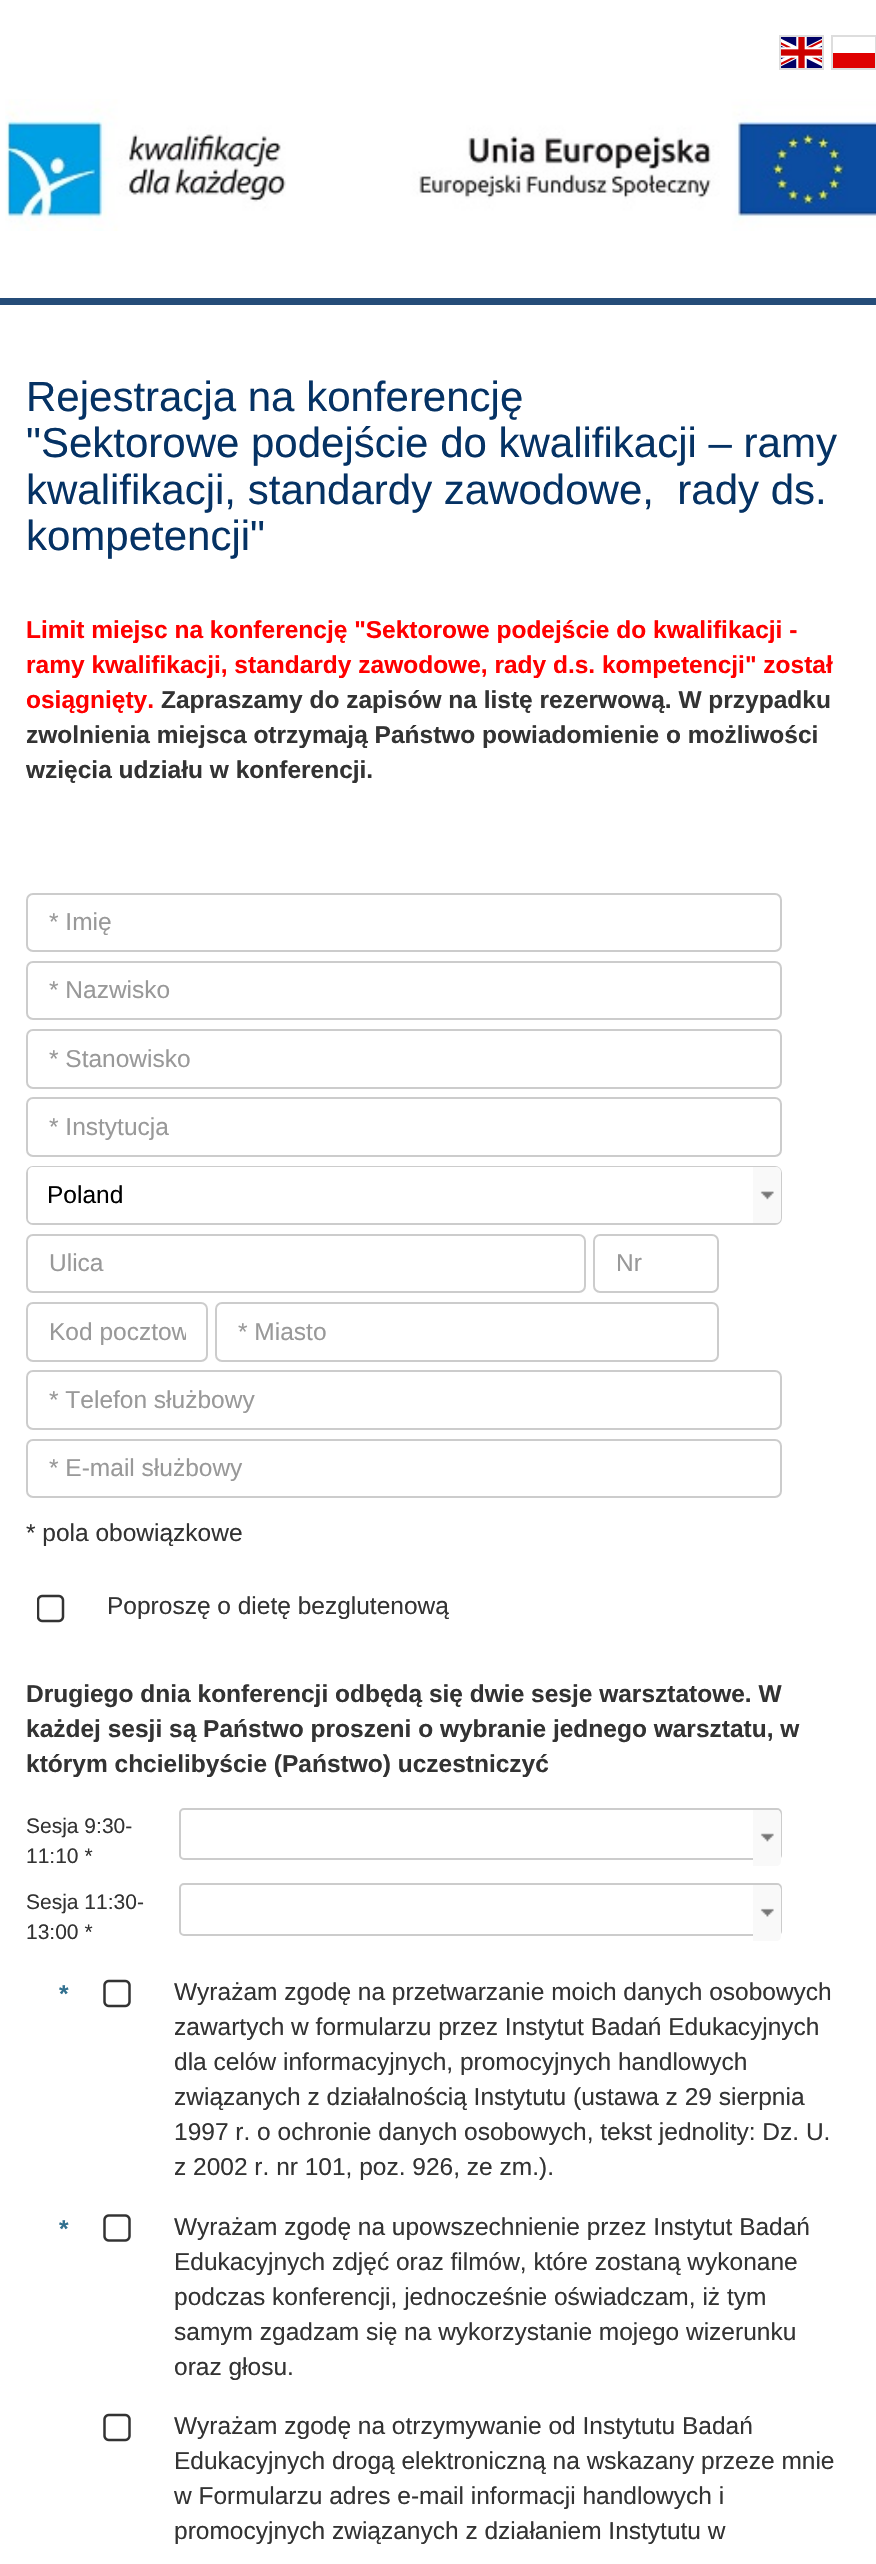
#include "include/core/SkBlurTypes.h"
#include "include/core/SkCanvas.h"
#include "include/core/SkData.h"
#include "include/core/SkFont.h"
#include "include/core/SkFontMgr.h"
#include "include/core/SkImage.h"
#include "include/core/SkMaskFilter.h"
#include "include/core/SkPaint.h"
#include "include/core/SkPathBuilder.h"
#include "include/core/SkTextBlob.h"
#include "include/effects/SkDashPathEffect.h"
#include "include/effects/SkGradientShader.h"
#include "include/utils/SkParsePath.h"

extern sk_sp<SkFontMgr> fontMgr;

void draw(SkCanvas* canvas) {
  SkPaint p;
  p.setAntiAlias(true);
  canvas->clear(SK_ColorWHITE);
  canvas->drawImageRect(SkImages::DeferredFromEncodedData(SkData::MakeFromFileName("images/1.png")), SkRect::MakeLTRB(781, 37, 822, 68), SkSamplingOptions());
  p.setStyle(SkPaint::kStroke_Style);
  p.setStrokeWidth(2);
  p.setColor(SkColorSetRGB(221, 221, 221));
  canvas->drawRect(SkRect::MakeLTRB(780, 36, 823, 69), p);
  p.setStyle(SkPaint::kFill_Style);
  p.setColor(SkColorSetRGB(223, 0, 0));
  canvas->drawRect(SkRect::MakeLTRB(833, 53, 875, 68), p);
  p.setStyle(SkPaint::kStroke_Style);
  p.setColor(SkColorSetRGB(221, 221, 221));
  canvas->drawRect(SkRect::MakeLTRB(832, 36, 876, 69), p);
  canvas->drawImageRect(SkImages::DeferredFromEncodedData(SkData::MakeFromFileName("images/2.png")), SkRect::MakeLTRB(5, 99, 876, 231), SkSamplingOptions());
  p.setStyle(SkPaint::kFill_Style);
  p.setColor(SkColorSetRGB(37, 76, 120));
  canvas->drawRect(SkRect::MakeLTRB(0, 298, 876, 305), p);
  p.setStyle(SkPaint::kStroke_Style);
  p.setColor(SkColorSetRGB(204, 204, 204));
  canvas->drawRoundRect(SkRect::MakeLTRB(27, 894, 781, 951), 6, 6, p);
  canvas->drawRoundRect(SkRect::MakeLTRB(27, 962, 781, 1019), 6, 6, p);
  canvas->drawRoundRect(SkRect::MakeLTRB(27, 1030, 781, 1088), 6, 6, p);
  canvas->drawRoundRect(SkRect::MakeLTRB(27, 1098, 781, 1156), 6, 6, p);
  canvas->drawRoundRect(SkRect::MakeLTRB(27, 1167, 781, 1224), 6, 6, p);
  p.setStyle(SkPaint::kFill_Style);
  p.setColor(SK_ColorWHITE);
  canvas->drawPath(SkPathBuilder().moveTo(33, 1167).lineTo(753, 1167).lineTo(753, 1223).lineTo(33, 1223).cubicTo(30, 1223, 28, 1221, 28, 1218).lineTo(28, 1172).cubicTo(28, 1169, 30, 1167, 33, 1167).close().detach(), p);
  p.setColor(SkColorSetRGB(249, 249, 249));
  canvas->drawPath(SkPathBuilder().moveTo(753, 1167).lineTo(776, 1167).cubicTo(779, 1167, 781, 1169, 781, 1172).lineTo(781, 1218).cubicTo(781, 1221, 779, 1223, 776, 1223).lineTo(753, 1223).close().detach(), p);
  canvas->drawImageRect(SkImages::DeferredFromEncodedData(SkData::MakeFromFileName("images/3.png")), SkRect::MakeLTRB(760, 1191, 774, 1200), SkSamplingOptions());
  p.setStyle(SkPaint::kStroke_Style);
  p.setColor(SkColorSetRGB(204, 204, 204));
  canvas->drawRoundRect(SkRect::MakeLTRB(27, 1235, 585, 1292), 6, 6, p);
  canvas->drawRoundRect(SkRect::MakeLTRB(594, 1235, 718, 1292), 6, 6, p);
  canvas->drawRoundRect(SkRect::MakeLTRB(27, 1303, 207, 1361), 6, 6, p);
  canvas->drawRoundRect(SkRect::MakeLTRB(216, 1303, 718, 1361), 6, 6, p);
  canvas->drawRoundRect(SkRect::MakeLTRB(27, 1371, 781, 1429), 6, 6, p);
  canvas->drawRoundRect(SkRect::MakeLTRB(27, 1440, 781, 1497), 6, 6, p);
  canvas->drawImageRect(SkImages::DeferredFromEncodedData(SkData::MakeFromFileName("images/4.png")), SkRect::MakeLTRB(37, 1594, 65, 1623), SkSamplingOptions());
  canvas->drawRoundRect(SkRect::MakeLTRB(180, 1809, 781, 1859), 4, 4, p);
  p.setStyle(SkPaint::kFill_Style);
  p.setColor(SkColorSetRGB(249, 249, 249));
  canvas->drawPath(SkPathBuilder().moveTo(753, 1810).lineTo(776, 1810).cubicTo(779, 1810, 781, 1812, 781, 1815).lineTo(781, 1861).cubicTo(781, 1864, 779, 1866, 776, 1866).lineTo(753, 1866).close().detach(), p);
  canvas->drawImageRect(SkImages::DeferredFromEncodedData(SkData::MakeFromFileName("images/5.png")), SkRect::MakeLTRB(760, 1833, 774, 1842), SkSamplingOptions());
  p.setStyle(SkPaint::kStroke_Style);
  p.setColor(SkColorSetRGB(204, 204, 204));
  canvas->drawRoundRect(SkRect::MakeLTRB(180, 1884, 781, 1935), 4, 4, p);
  p.setStyle(SkPaint::kFill_Style);
  p.setColor(SkColorSetRGB(249, 249, 249));
  canvas->drawPath(SkPathBuilder().moveTo(753, 1885).lineTo(776, 1885).cubicTo(779, 1885, 781, 1887, 781, 1890).lineTo(781, 1936).cubicTo(781, 1939, 779, 1941, 776, 1941).lineTo(753, 1941).close().detach(), p);
  canvas->drawImageRect(SkImages::DeferredFromEncodedData(SkData::MakeFromFileName("images/6.png")), SkRect::MakeLTRB(760, 1908, 774, 1917), SkSamplingOptions());
  canvas->drawImageRect(SkImages::DeferredFromEncodedData(SkData::MakeFromFileName("images/7.png")), SkRect::MakeLTRB(103, 1979, 131, 2008), SkSamplingOptions());
  canvas->drawImageRect(SkImages::DeferredFromEncodedData(SkData::MakeFromFileName("images/8.png")), SkRect::MakeLTRB(103, 2214, 131, 2242), SkSamplingOptions());
  canvas->drawImageRect(SkImages::DeferredFromEncodedData(SkData::MakeFromFileName("images/7.png")), SkRect::MakeLTRB(103, 2413, 131, 2442), SkSamplingOptions());
  SkFont font1(fontMgr->matchFamilyStyle("Liberation Sans", SkFontStyle::Normal()), 42);
  font1.setSubpixel(true);
  p.setColor(SkColorSetRGB(5, 50, 100));
  canvas->drawString("Rejestracja na konferencję", 26, 411, font1, p);
  canvas->drawString("\"Sektorowe podejście do kwalifikacji – ramy", 26, 457, font1, p);
  canvas->drawString("kwalifikacji, standardy zawodowe,  rady ds.", 26, 504, font1, p);
  canvas->drawString("kompetencji\"", 26, 550, font1, p);
  SkFont font2(fontMgr->matchFamilyStyle("Liberation Sans", SkFontStyle::Bold()), 24.5f);
  font2.setSubpixel(true);
  p.setColor(SkColorSetRGB(255, 0, 0));
  canvas->drawString("Limit miejsc na konferencję \"Sektorowe podejście do kwalifikacji -", 26, 638, font2, p);
  canvas->drawString("ramy kwalifikacji, standardy zawodowe, rady d.s. kompetencji\" został", 26, 673, font2, p);
  canvas->drawString("osiągnięty.", 26, 708, font2, p);
  p.setColor(SkColorSetRGB(51, 51, 51));
  canvas->drawString("Zapraszamy do zapisów na listę rezerwową. W przypadku", 161, 708, font2, p);
  canvas->drawString("zwolnienia miejsca otrzymają Państwo powiadomienie o możliwości", 26, 743, font2, p);
  canvas->drawString("wzięcia udziału w konferencji.", 26, 778, font2, p);
  SkFont font3(fontMgr->matchFamilyStyle("Liberation Sans", SkFontStyle::Normal()), 24.5f);
  font3.setSubpixel(true);
  p.setColor(SkColorSetRGB(153, 153, 153));
  canvas->drawString("* Imię", 49, 930, font3, p);
  canvas->drawString("* Nazwisko", 49, 998, font3, p);
  canvas->drawString("* Stanowisko", 49, 1067, font3, p);
  canvas->drawString("* Instytucja", 49, 1135, font3, p);
  p.setColor(SK_ColorBLACK);
  canvas->drawString("Poland", 47, 1203, font3, p);
  p.setColor(SkColorSetRGB(153, 153, 153));
  canvas->drawString("Ulica", 49, 1271, font3, p);
  canvas->drawString("Nr", 616, 1271, font3, p);
  canvas->save();
  canvas->clipRect(SkRect::MakeLTRB(49, 1318, 186, 1346));
  canvas->drawString("Kod pocztow", 49, 1340, font3, p);
  canvas->restore();
  canvas->drawString("* Miasto", 238, 1340, font3, p);
  canvas->drawString("* Telefon służbowy", 49, 1408, font3, p);
  canvas->drawString("* E-mail służbowy", 49, 1476, font3, p);
  p.setColor(SkColorSetRGB(51, 51, 51));
  canvas->drawString("* pola obowiązkowe", 26, 1541, font3, p);
  canvas->drawString("Poproszę o dietę bezglutenową", 107, 1614, font3, p);
  canvas->drawString("Drugiego dnia konferencji odbędą się dwie sesje warsztatowe. W", 26, 1702, font2, p);
  canvas->drawString("każdej sesji są Państwo proszeni o wybranie jednego warsztatu, w", 26, 1737, font2, p);
  canvas->drawString("którym chcielibyście (Państwo) uczestniczyć", 26, 1772, font2, p);
  SkFont font4(fontMgr->matchFamilyStyle("Liberation Sans", SkFontStyle::Normal()), 21);
  font4.setSubpixel(true);
  canvas->drawString("Sesja 9:30-", 26, 1833, font4, p);
  canvas->drawString("11:10 *", 26, 1863, font4, p);
  canvas->drawString("Sesja 11:30-", 26, 1909, font4, p);
  canvas->drawString("13:00 *", 26, 1939, font4, p);
  p.setColor(SkColorSetRGB(49, 112, 143));
  canvas->drawString("*", 59, 2002, font2, p);
  p.setColor(SkColorSetRGB(51, 51, 51));
  canvas->drawString("Wyrażam zgodę na przetwarzanie moich danych osobowych", 174, 2000, font3, p);
  canvas->drawString("zawartych w formularzu przez Instytut Badań Edukacyjnych", 174, 2035, font3, p);
  canvas->drawString("dla celów informacyjnych, promocyjnych handlowych", 174, 2070, font3, p);
  canvas->drawString("związanych z działalnością Instytutu (ustawa z 29 sierpnia", 174, 2105, font3, p);
  canvas->drawString("1997 r. o ochronie danych osobowych, tekst jednolity: Dz. U.", 174, 2140, font3, p);
  canvas->drawString("z 2002 r. nr 101, poz. 926, ze zm.).", 174, 2175, font3, p);
  p.setColor(SkColorSetRGB(49, 112, 143));
  canvas->drawString("*", 59, 2237, font2, p);
  p.setColor(SkColorSetRGB(51, 51, 51));
  canvas->drawString("Wyrażam zgodę na upowszechnienie przez Instytut Badań", 174, 2235, font3, p);
  canvas->drawString("Edukacyjnych zdjęć oraz filmów, które zostaną wykonane", 174, 2270, font3, p);
  canvas->drawString("podczas konferencji, jednocześnie oświadczam, iż tym", 174, 2305, font3, p);
  canvas->drawString("samym zgadzam się na wykorzystanie mojego wizerunku", 174, 2340, font3, p);
  canvas->drawString("oraz głosu.", 174, 2375, font3, p);
  canvas->drawString("Wyrażam zgodę na otrzymywanie od Instytutu Badań", 174, 2434, font3, p);
  canvas->drawString("Edukacyjnych drogą elektroniczną na wskazany przeze mnie", 174, 2469, font3, p);
  canvas->drawString("w Formularzu adres e-mail informacji handlowych i", 174, 2504, font3, p);
  canvas->drawString("promocyjnych związanych z działaniem Instytutu w", 174, 2539, font3, p);
}
